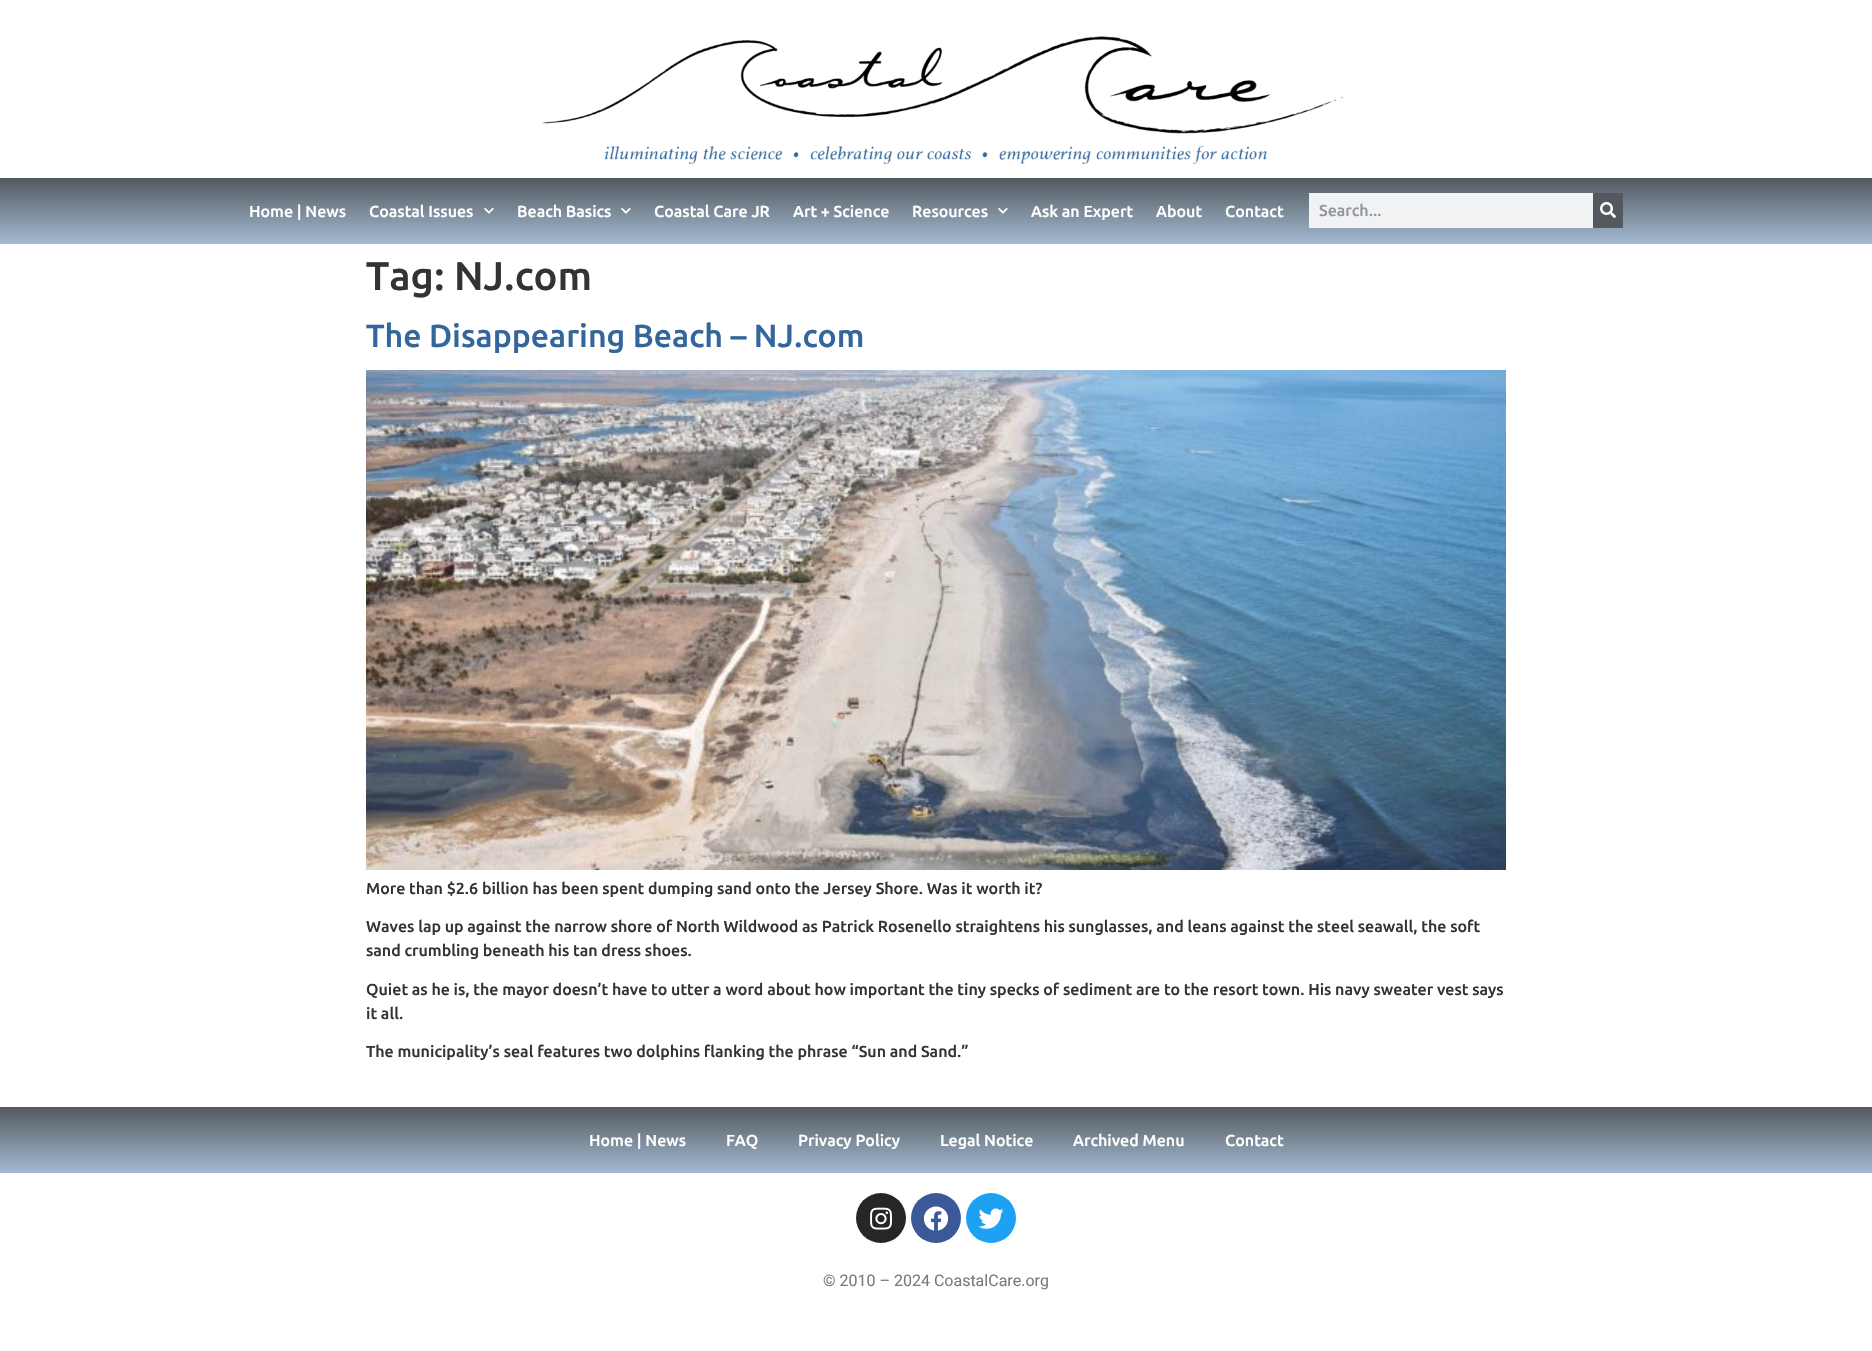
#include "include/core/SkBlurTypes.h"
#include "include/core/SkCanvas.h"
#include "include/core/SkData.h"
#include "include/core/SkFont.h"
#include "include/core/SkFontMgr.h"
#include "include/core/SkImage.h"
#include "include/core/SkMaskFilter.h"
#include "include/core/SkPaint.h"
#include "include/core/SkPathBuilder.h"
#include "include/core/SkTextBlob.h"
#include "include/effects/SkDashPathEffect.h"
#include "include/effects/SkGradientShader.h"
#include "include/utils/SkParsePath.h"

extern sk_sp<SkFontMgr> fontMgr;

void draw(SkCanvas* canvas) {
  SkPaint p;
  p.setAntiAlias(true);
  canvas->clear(SK_ColorWHITE);
  canvas->drawImageRect(SkImages::DeferredFromEncodedData(SkData::MakeFromFileName("images/1.png")), SkRect::MakeLTRB(542, 36, 1344, 164), SkSamplingOptions());
  {
    const SkColor colors[] = {SkColorSetRGB(84, 89, 95), SkColorSetRGB(163, 186, 210)};
    const float stops[] = {0, 1};
    const SkPoint ends[] = {{936, 178}, {936, 244}};
    p.setShader(SkGradientShader::MakeLinear(ends, colors, stops, 2, SkTileMode::kClamp));
    p.setAlpha(255);
  }
  canvas->drawRect(SkRect::MakeLTRB(0, 178, 1872, 244), p);
  canvas->drawImageRect(SkImages::DeferredFromEncodedData(SkData::MakeFromFileName("images/2.png")), SkRect::MakeLTRB(484, 208, 494, 214), SkSamplingOptions());
  canvas->drawImageRect(SkImages::DeferredFromEncodedData(SkData::MakeFromFileName("images/2.png")), SkRect::MakeLTRB(621, 208, 631, 214), SkSamplingOptions());
  canvas->drawImageRect(SkImages::DeferredFromEncodedData(SkData::MakeFromFileName("images/2.png")), SkRect::MakeLTRB(998, 208, 1008, 214), SkSamplingOptions());
  p.setShader(nullptr);
  p.setColor(SkColorSetRGB(241, 242, 243));
  canvas->drawRect(SkRect::MakeLTRB(1309, 193, 1593, 228), p);
  p.setColor(SkColorSetRGB(84, 89, 95));
  canvas->drawRect(SkRect::MakeLTRB(1593, 193, 1623, 228), p);
  canvas->drawImageRect(SkImages::DeferredFromEncodedData(SkData::MakeFromFileName("images/3.png")), SkRect::MakeLTRB(1600, 202, 1616, 218), SkSamplingOptions());
  canvas->drawImageRect(SkImages::DeferredFromEncodedData(SkData::MakeFromFileName("images/4.png")), SkRect::MakeLTRB(366, 370, 1506, 870), SkSamplingOptions());
  {
    const SkColor colors[] = {SkColorSetRGB(84, 89, 95), SkColorSetRGB(163, 186, 210)};
    const float stops[] = {0, 1};
    const SkPoint ends[] = {{936, 1107}, {936, 1173}};
    p.setShader(SkGradientShader::MakeLinear(ends, colors, stops, 2, SkTileMode::kClamp));
    p.setAlpha(255);
  }
  canvas->drawRect(SkRect::MakeLTRB(0, 1107, 1872, 1173), p);
  p.setShader(nullptr);
  p.setColor(SkColorSetRGB(38, 38, 38));
  canvas->drawCircle(881, 1218, 25, p);
  canvas->drawImageRect(SkImages::DeferredFromEncodedData(SkData::MakeFromFileName("images/5.png")), SkRect::MakeLTRB(870, 1207, 892, 1230), SkSamplingOptions());
  p.setColor(SkColorSetRGB(59, 89, 152));
  canvas->drawCircle(936, 1218, 25, p);
  canvas->drawImageRect(SkImages::DeferredFromEncodedData(SkData::MakeFromFileName("images/6.png")), SkRect::MakeLTRB(923, 1206, 949, 1231), SkSamplingOptions());
  p.setColor(SkColorSetRGB(29, 161, 242));
  canvas->drawCircle(991, 1218, 25, p);
  canvas->drawImageRect(SkImages::DeferredFromEncodedData(SkData::MakeFromFileName("images/7.png")), SkRect::MakeLTRB(978, 1208, 1004, 1229), SkSamplingOptions());
  SkFont font1(fontMgr->matchFamilyStyle("Ubuntu", SkFontStyle(500, SkFontStyle::kNormal_Width, SkFontStyle::kUpright_Slant)), 16);
  font1.setSubpixel(true);
  p.setColor(SK_ColorWHITE);
  canvas->drawString("Home | News", 249, 217, font1, p);
  canvas->drawString("Coastal Issues", 369, 217, font1, p);
  canvas->drawString("Beach Basics", 517, 217, font1, p);
  canvas->drawString("Coastal Care JR", 654, 217, font1, p);
  canvas->drawString("Art + Science", 793, 217, font1, p);
  canvas->drawString("Resources", 912, 217, font1, p);
  canvas->drawString("Ask an Expert", 1031, 217, font1, p);
  canvas->drawString("About", 1156, 217, font1, p);
  canvas->drawString("Contact", 1225, 217, font1, p);
  p.setColor(SkColorSetRGB(147, 150, 154));
  canvas->drawString("Search...", 1319, 216, font1, p);
  SkFont font2(fontMgr->matchFamilyStyle("Ubuntu", SkFontStyle(500, SkFontStyle::kNormal_Width, SkFontStyle::kUpright_Slant)), 40);
  font2.setSubpixel(true);
  p.setColor(SkColorSetRGB(51, 51, 51));
  canvas->drawString("Tag: NJ.com", 366, 290, font2, p);
  SkFont font3(fontMgr->matchFamilyStyle("Ubuntu", SkFontStyle(500, SkFontStyle::kNormal_Width, SkFontStyle::kUpright_Slant)), 32);
  font3.setSubpixel(true);
  p.setColor(SkColorSetRGB(51, 102, 155));
  canvas->drawString("The Disappearing Beach – NJ.com", 366, 347, font3, p);
  p.setColor(SkColorSetRGB(51, 51, 51));
  canvas->drawString("More than $2.6 billion has been spent dumping sand onto the Jersey Shore. Was it worth it?", 366, 894, font1, p);
  canvas->drawString("Waves lap up against the narrow shore of North Wildwood as Patrick Rosenello straightens his sunglasses, and leans against the steel seawall, the soft", 366, 932, font1, p);
  canvas->drawString("sand crumbling beneath his tan dress shoes.", 366, 956, font1, p);
  canvas->drawString("Quiet as he is, the mayor doesn’t have to utter a word about how important the tiny specks of sediment are to the resort town. His navy sweater vest says", 366, 995, font1, p);
  canvas->drawString("it all.", 366, 1019, font1, p);
  canvas->drawString("The municipality’s seal features two dolphins flanking the phrase “Sun and Sand.”", 366, 1057, font1, p);
  p.setColor(SK_ColorWHITE);
  canvas->drawString("Home | News", 589, 1146, font1, p);
  canvas->drawString("FAQ", 726, 1146, font1, p);
  canvas->drawString("Privacy Policy", 798, 1146, font1, p);
  canvas->drawString("Legal Notice", 940, 1146, font1, p);
  canvas->drawString("Archived Menu", 1073, 1146, font1, p);
  canvas->drawString("Contact", 1225, 1146, font1, p);
  SkFont font4(fontMgr->matchFamilyStyle("Roboto", SkFontStyle::Normal()), 16);
  font4.setSubpixel(true);
  p.setColor(SkColorSetRGB(122, 122, 122));
  canvas->drawString("© 2010 – 2024 CoastalCare.org", 823, 1286, font4, p);
}
